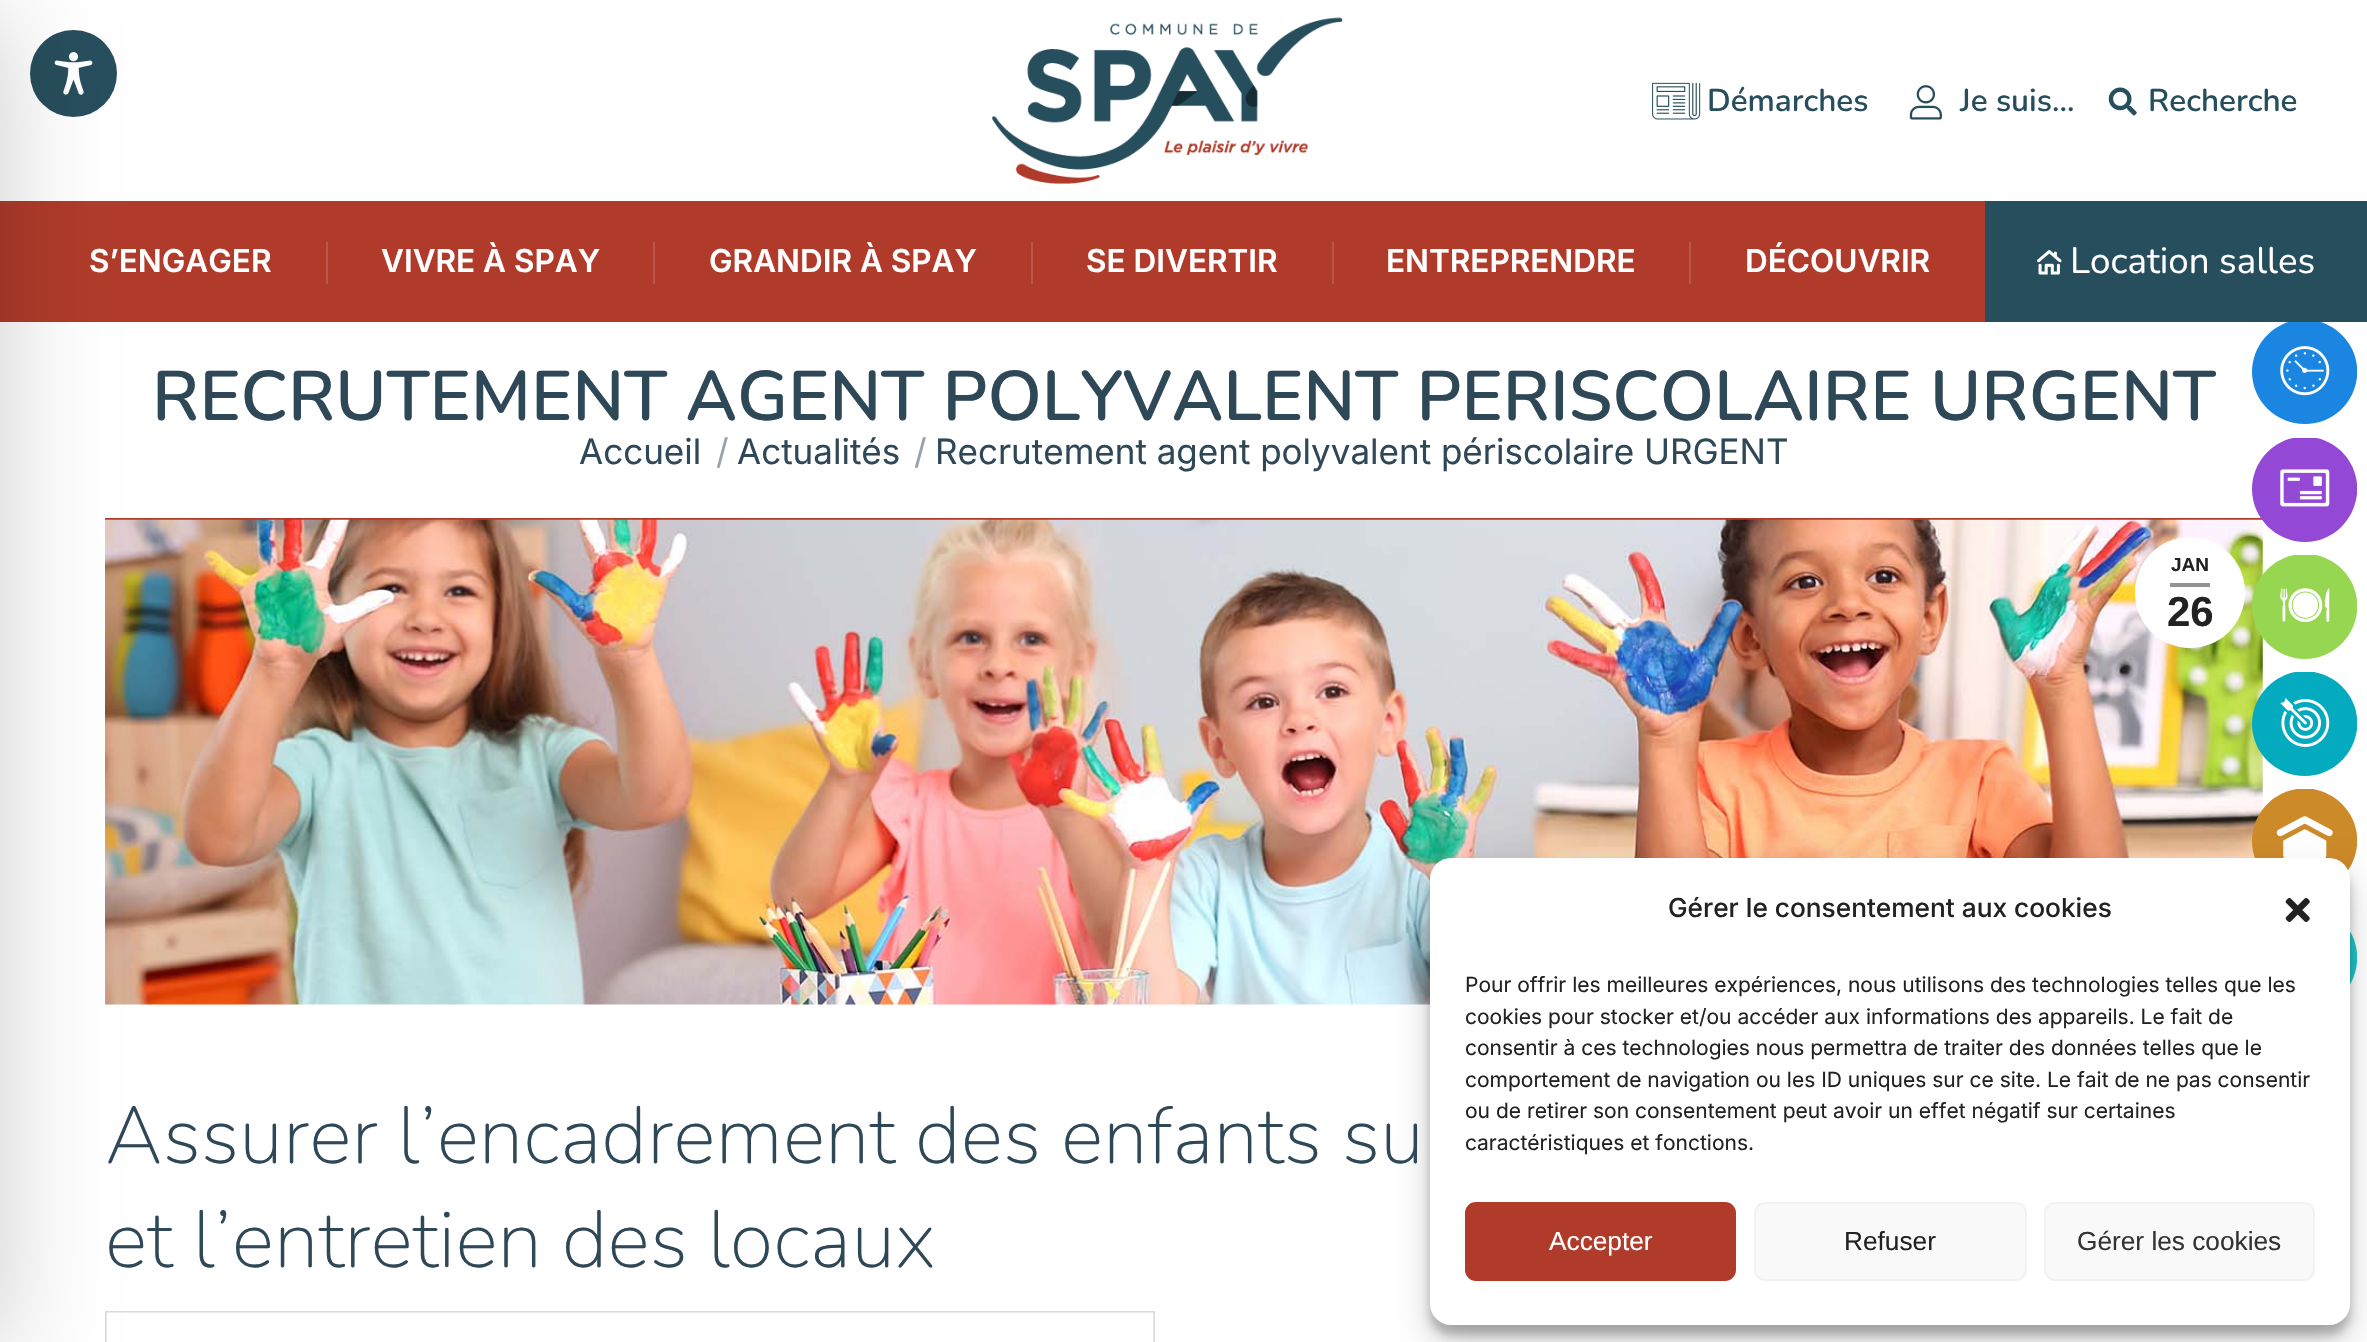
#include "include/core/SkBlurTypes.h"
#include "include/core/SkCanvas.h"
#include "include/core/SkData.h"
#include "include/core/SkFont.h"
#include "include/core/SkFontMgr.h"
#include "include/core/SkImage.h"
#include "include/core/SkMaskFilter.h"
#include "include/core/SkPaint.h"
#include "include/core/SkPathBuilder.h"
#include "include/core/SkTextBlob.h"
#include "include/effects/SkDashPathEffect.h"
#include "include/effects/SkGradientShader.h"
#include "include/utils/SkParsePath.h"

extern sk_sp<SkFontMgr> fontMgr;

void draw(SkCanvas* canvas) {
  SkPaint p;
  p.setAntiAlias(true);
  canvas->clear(SK_ColorWHITE);
  p.setColor(SkColorSetRGB(39, 78, 93));
  canvas->drawCircle(73.5f, 73.5f, 43.5f, p);
  canvas->drawImageRect(SkImages::DeferredFromEncodedData(SkData::MakeFromFileName("images/1.png")), SkRect::MakeLTRB(54, 52, 93, 95), SkSamplingOptions());
  p.setColor(SkColorSetRGB(176, 59, 42));
  canvas->drawRect(SkRect::MakeLTRB(0, 201, 1985, 322), p);
  canvas->drawRect(SkRect::MakeLTRB(105, 518, 2263, 520), p);
  canvas->drawImageRect(SkImages::DeferredFromEncodedData(SkData::MakeFromFileName("images/7.png")), SkRect::MakeLTRB(105, 519, 2263, 1005), SkSamplingOptions());
  canvas->drawImageRect(SkImages::DeferredFromEncodedData(SkData::MakeFromFileName("images/8.png")), SkRect::MakeLTRB(105, 1311, 1155, 1342), SkSamplingOptions());
  p.setColor(SkColorSetARGB(51, 0, 0, 0));
  p.setMaskFilter(SkMaskFilter::MakeBlur(kNormal_SkBlurStyle, 52.5f));
  canvas->drawRect(SkRect::MakeLTRB(-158, 18, 0, 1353), p);
  p.setMaskFilter(nullptr);
  canvas->drawImageRect(SkImages::DeferredFromEncodedData(SkData::MakeFromFileName("images/2.png")), SkRect::MakeLTRB(992, 17, 1343, 184), SkSamplingOptions());
  canvas->drawImageRect(SkImages::DeferredFromEncodedData(SkData::MakeFromFileName("images/3.png")), SkRect::MakeLTRB(1652, 82, 1701, 120), SkSamplingOptions());
  canvas->drawImageRect(SkImages::DeferredFromEncodedData(SkData::MakeFromFileName("images/4.png")), SkRect::MakeLTRB(1909, 85, 1942, 120), SkSamplingOptions());
  canvas->drawImageRect(SkImages::DeferredFromEncodedData(SkData::MakeFromFileName("images/5.png")), SkRect::MakeLTRB(2108, 87, 2137, 116), SkSamplingOptions());
  p.setColor(SkColorSetRGB(187, 86, 72));
  canvas->drawRect(SkRect::MakeLTRB(326, 242, 328, 284), p);
  canvas->drawRect(SkRect::MakeLTRB(653, 242, 655, 284), p);
  canvas->drawRect(SkRect::MakeLTRB(1031, 242, 1033, 284), p);
  canvas->drawRect(SkRect::MakeLTRB(1332, 242, 1334, 284), p);
  canvas->drawRect(SkRect::MakeLTRB(1689, 242, 1691, 284), p);
  p.setColor(SkColorSetRGB(27, 133, 226));
  canvas->drawPath(SkPathBuilder().moveTo(2357, 377).cubicTo(2354, 404, 2332, 424, 2305, 424).cubicTo(2276, 424, 2252, 401, 2252, 372).cubicTo(2252, 346, 2271, 324, 2297, 320).lineTo(2313, 320).cubicTo(2336, 324, 2355, 343, 2357, 367).close().detach(), p);
  p.setColor(SkColorSetRGB(39, 78, 93));
  canvas->drawRect(SkRect::MakeLTRB(1985, 201, 2367, 322), p);
  canvas->drawImageRect(SkImages::DeferredFromEncodedData(SkData::MakeFromFileName("images/6.png")), SkRect::MakeLTRB(2037, 250, 2062, 275), SkSamplingOptions());
  p.setColor(SK_ColorWHITE);
  canvas->drawRoundRect(SkRect::MakeLTRB(2135, 537, 2245, 648), 55, 55, p);
  p.setColor(SkColorSetRGB(147, 147, 147));
  canvas->drawRect(SkRect::MakeLTRB(2170, 583, 2210, 587), p);
  canvas->drawImageRect(SkImages::DeferredFromEncodedData(SkData::MakeFromFileName("images/9.png")), SkRect::MakeLTRB(2280, 346, 2330, 396), SkSamplingOptions());
  p.setColor(SkColorSetRGB(148, 72, 214));
  canvas->drawPath(SkPathBuilder().moveTo(2357, 494).cubicTo(2354, 521, 2332, 542, 2305, 542).cubicTo(2276, 542, 2252, 518, 2252, 489).cubicTo(2252, 464, 2270, 443, 2293, 438).lineTo(2317, 438).cubicTo(2338, 443, 2355, 461, 2357, 484).close().detach(), p);
  canvas->drawImageRect(SkImages::DeferredFromEncodedData(SkData::MakeFromFileName("images/10.png")), SkRect::MakeLTRB(2280, 469, 2330, 507), SkSamplingOptions());
  p.setColor(SkColorSetRGB(150, 214, 81));
  canvas->drawPath(SkPathBuilder().moveTo(2357, 612).cubicTo(2354, 638, 2332, 659, 2305, 659).cubicTo(2276, 659, 2252, 635, 2252, 606).cubicTo(2252, 581, 2270, 560, 2294, 555).lineTo(2316, 555).cubicTo(2338, 560, 2355, 578, 2357, 601).close().detach(), p);
  canvas->drawImageRect(SkImages::DeferredFromEncodedData(SkData::MakeFromFileName("images/11.png")), SkRect::MakeLTRB(2280, 588, 2330, 623), SkSamplingOptions());
  p.setColor(SkColorSetRGB(4, 170, 189));
  canvas->drawPath(SkPathBuilder().moveTo(2357, 729).cubicTo(2354, 755, 2332, 776, 2305, 776).cubicTo(2276, 776, 2252, 753, 2252, 724).cubicTo(2252, 698, 2271, 677, 2295, 672).lineTo(2314, 672).cubicTo(2337, 676, 2355, 695, 2357, 718).close().detach(), p);
  canvas->drawImageRect(SkImages::DeferredFromEncodedData(SkData::MakeFromFileName("images/12.png")), SkRect::MakeLTRB(2280, 698, 2330, 747), SkSamplingOptions());
  p.setColor(SkColorSetRGB(204, 138, 41));
  canvas->drawPath(SkPathBuilder().moveTo(2357, 846).cubicTo(2354, 873, 2332, 893, 2305, 893).cubicTo(2276, 893, 2252, 870, 2252, 841).cubicTo(2252, 815, 2271, 793, 2297, 789).lineTo(2313, 789).cubicTo(2336, 793, 2355, 812, 2357, 836).close().detach(), p);
  canvas->drawImageRect(SkImages::DeferredFromEncodedData(SkData::MakeFromFileName("images/13.png")), SkRect::MakeLTRB(2276, 816, 2333, 858), SkSamplingOptions());
  p.setColor(SkColorSetRGB(32, 198, 204));
  canvas->drawPath(SkPathBuilder().moveTo(2357, 963).cubicTo(2354, 990, 2332, 1011, 2305, 1011).cubicTo(2276, 1011, 2252, 987, 2252, 958).cubicTo(2252, 933, 2270, 912, 2293, 907).lineTo(2317, 907).cubicTo(2338, 912, 2355, 930, 2357, 953).close().detach(), p);
  p.setColor(SkColorSetARGB(59, 0, 0, 0));
  p.setMaskFilter(SkMaskFilter::MakeBlur(kNormal_SkBlurStyle, 5));
  canvas->drawRoundRect(SkRect::MakeLTRB(1430, 868, 2350, 1335), 21, 21, p);
  p.setMaskFilter(nullptr);
  p.setColor(SkColorSetARGB(48, 0, 0, 0));
  p.setMaskFilter(SkMaskFilter::MakeBlur(kNormal_SkBlurStyle, 17.5f));
  canvas->drawRoundRect(SkRect::MakeLTRB(1430, 875, 2350, 1342), 21, 21, p);
  p.setMaskFilter(nullptr);
  p.setColor(SK_ColorWHITE);
  canvas->drawRoundRect(SkRect::MakeLTRB(1430, 858, 2350, 1325), 21, 21, p);
  canvas->drawImageRect(SkImages::DeferredFromEncodedData(SkData::MakeFromFileName("images/14.png")), SkRect::MakeLTRB(2285, 898, 2310, 922), SkSamplingOptions());
  p.setColor(SkColorSetRGB(176, 59, 42));
  canvas->drawRoundRect(SkRect::MakeLTRB(1466, 1203, 1735, 1280), 10, 10, p);
  p.setStyle(SkPaint::kStroke_Style);
  p.setStrokeWidth(2);
  canvas->drawRoundRect(SkRect::MakeLTRB(1466, 1203, 1735, 1280), 10, 10, p);
  p.setStyle(SkPaint::kFill_Style);
  p.setColor(SkColorSetRGB(249, 249, 249));
  canvas->drawRoundRect(SkRect::MakeLTRB(1755, 1203, 2026, 1280), 10, 10, p);
  p.setStyle(SkPaint::kStroke_Style);
  p.setColor(SkColorSetRGB(242, 242, 242));
  canvas->drawRoundRect(SkRect::MakeLTRB(1755, 1203, 2026, 1280), 10, 10, p);
  p.setStyle(SkPaint::kFill_Style);
  p.setColor(SkColorSetRGB(249, 249, 249));
  canvas->drawRoundRect(SkRect::MakeLTRB(2045, 1203, 2314, 1280), 10, 10, p);
  p.setStyle(SkPaint::kStroke_Style);
  p.setColor(SkColorSetRGB(242, 242, 242));
  canvas->drawRoundRect(SkRect::MakeLTRB(2045, 1203, 2314, 1280), 10, 10, p);
  SkFont font1(fontMgr->matchFamilyStyle("Nunito", SkFontStyle(600, SkFontStyle::kNormal_Width, SkFontStyle::kUpright_Slant)), 31.5f);
  font1.setSubpixel(true);
  p.setStyle(SkPaint::kFill_Style);
  p.setColor(SkColorSetRGB(39, 78, 93));
  canvas->drawString("Démarches", 1707, 111, font1, p);
  canvas->drawString("Je suis…", 1960, 111, font1, p);
  canvas->drawString("Recherche", 2148, 111, font1, p);
  SkFont font2(fontMgr->matchFamilyStyle("Inter", SkFontStyle(600, SkFontStyle::kNormal_Width, SkFontStyle::kUpright_Slant)), 31.5f);
  font2.setSubpixel(true);
  p.setColor(SK_ColorWHITE);
  canvas->drawString("S’ENGAGER", 89, 272, font2, p);
  canvas->drawString("VIVRE À SPAY", 381, 272, font2, p);
  canvas->drawString("GRANDIR À SPAY", 709, 272, font2, p);
  canvas->drawString("SE DIVERTIR", 1086, 272, font2, p);
  canvas->drawString("ENTREPRENDRE", 1386, 272, font2, p);
  canvas->drawString("DÉCOUVRIR", 1745, 272, font2, p);
  SkFont font3(fontMgr->matchFamilyStyle("Nunito", SkFontStyle::Normal()), 36.75f);
  font3.setSubpixel(true);
  canvas->drawString("Location salles", 2070, 273, font3, p);
  canvas->save();
  canvas->clipRect(SkRect::MakeLTRB(152, 368, 2216, 427));
  SkFont font4(fontMgr->matchFamilyStyle("Nunito", SkFontStyle(600, SkFontStyle::kNormal_Width, SkFontStyle::kUpright_Slant)), 70);
  font4.setSubpixel(true);
  p.setColor(SkColorSetRGB(47, 72, 88));
  canvas->drawString("RECRUTEMENT AGENT POLYVALENT PÉRISCOLAIRE URGENT", 152, 420, font4, p);
  canvas->restore();
  SkFont font5(fontMgr->matchFamilyStyle("Inter", SkFontStyle::Normal()), 35);
  font5.setSubpixel(true);
  canvas->drawString("Accueil", 579, 464, font5, p);
  p.setColor(SkColorSetRGB(151, 164, 172));
  canvas->drawString("/", 716, 464, font5, p);
  p.setColor(SkColorSetRGB(47, 72, 88));
  canvas->drawString("Actualités", 737, 464, font5, p);
  p.setColor(SkColorSetRGB(151, 164, 172));
  canvas->drawString("/", 914, 464, font5, p);
  p.setColor(SkColorSetRGB(47, 72, 88));
  canvas->drawString("Recrutement agent polyvalent périscolaire URGENT", 935, 464, font5, p);
  SkFont font6(fontMgr->matchFamilyStyle("Liberation Sans", SkFontStyle::Bold()), 19);
  font6.setSubpixel(true);
  p.setColor(SkColorSetRGB(34, 34, 34));
  canvas->drawString("JAN", 2171, 571, font6, p);
  SkFont font7(fontMgr->matchFamilyStyle("Liberation Sans", SkFontStyle::Bold()), 42);
  font7.setSubpixel(true);
  canvas->drawString("26", 2167, 626, font7, p);
  SkFont font8(fontMgr->matchFamilyStyle("Nunito", SkFontStyle(200, SkFontStyle::kNormal_Width, SkFontStyle::kUpright_Slant)), 80.5f);
  font8.setSubpixel(true);
  p.setColor(SkColorSetRGB(47, 72, 88));
  canvas->drawString("Assurer l’encadrement des enfants su", 105, 1163, font8, p);
  canvas->drawString("et l’entretien des locaux", 105, 1267, font8, p);
  SkFont font9(fontMgr->matchFamilyStyle("Inter", SkFontStyle(500, SkFontStyle::kNormal_Width, SkFontStyle::kUpright_Slant)), 26.25f);
  font9.setSubpixel(true);
  p.setColor(SkColorSetRGB(34, 34, 34));
  canvas->drawString("Gérer le consentement aux cookies", 1668, 917, font9, p);
  SkFont font10(fontMgr->matchFamilyStyle("Inter", SkFontStyle::Normal()), 21);
  font10.setSubpixel(true);
  canvas->drawString("Pour offrir les meilleures expériences, nous utilisons des technologies telles que les", 1465, 992, font10, p);
  canvas->drawString("cookies pour stocker et/ou accéder aux informations des appareils. Le fait de", 1465, 1024, font10, p);
  canvas->drawString("consentir à ces technologies nous permettra de traiter des données telles que le", 1465, 1055, font10, p);
  canvas->drawString("comportement de navigation ou les ID uniques sur ce site. Le fait de ne pas consentir", 1465, 1087, font10, p);
  canvas->drawString("ou de retirer son consentement peut avoir un effet négatif sur certaines", 1465, 1118, font10, p);
  canvas->drawString("caractéristiques et fonctions.", 1465, 1150, font10, p);
  SkFont font11(fontMgr->matchFamilyStyle("Liberation Sans", SkFontStyle::Normal()), 26.25f);
  font11.setSubpixel(true);
  p.setColor(SK_ColorWHITE);
  canvas->drawString("Accepter", 1549, 1250, font11, p);
  p.setColor(SkColorSetRGB(34, 34, 34));
  canvas->drawString("Refuser", 1844, 1250, font11, p);
  p.setColor(SkColorSetRGB(51, 51, 51));
  canvas->drawString("Gérer les cookies", 2077, 1250, font11, p);
}
